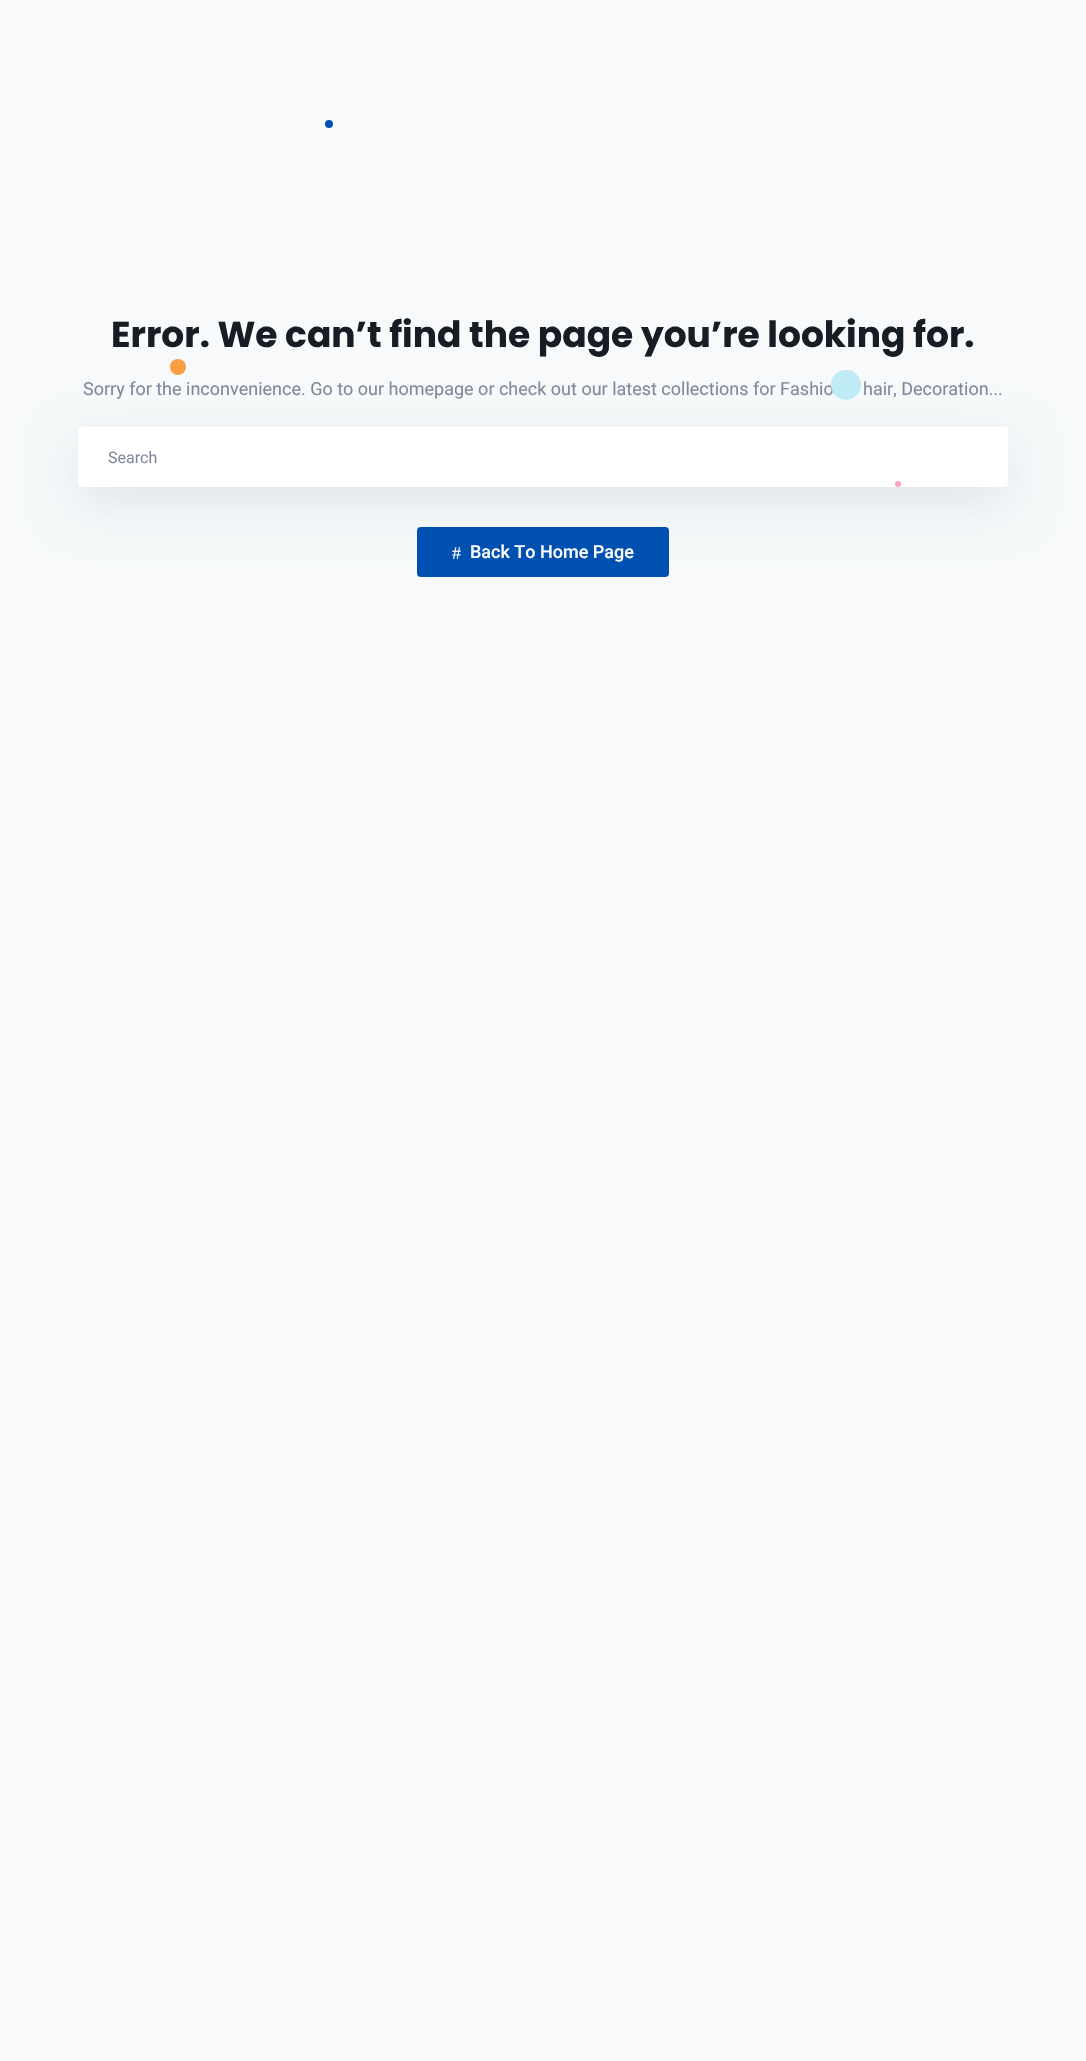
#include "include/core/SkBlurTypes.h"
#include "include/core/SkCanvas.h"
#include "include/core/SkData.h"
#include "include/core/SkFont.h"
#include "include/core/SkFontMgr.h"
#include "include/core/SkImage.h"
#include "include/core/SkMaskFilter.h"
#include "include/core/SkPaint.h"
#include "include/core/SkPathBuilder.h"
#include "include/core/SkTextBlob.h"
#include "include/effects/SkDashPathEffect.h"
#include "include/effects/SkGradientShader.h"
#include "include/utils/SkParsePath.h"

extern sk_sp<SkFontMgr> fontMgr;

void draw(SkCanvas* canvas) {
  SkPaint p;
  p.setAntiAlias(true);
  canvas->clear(SkColorSetRGB(247, 249, 250));
  p.setColor(SkColorSetRGB(0, 80, 178));
  canvas->drawCircle(329, 124, 4, p);
  p.setColor(SkColorSetARGB(26, 3, 62, 75));
  p.setMaskFilter(SkMaskFilter::MakeBlur(kNormal_SkBlurStyle, 25));
  canvas->drawRoundRect(SkRect::MakeLTRB(78, 443, 1008, 503), 4, 4, p);
  p.setMaskFilter(nullptr);
  p.setColor(SK_ColorWHITE);
  canvas->drawRoundRect(SkRect::MakeLTRB(78, 427, 1008, 487), 4, 4, p);
  p.setColor(SkColorSetRGB(0, 80, 178));
  canvas->drawRoundRect(SkRect::MakeLTRB(417, 527, 669, 577), 4, 4, p);
  p.setColor(SkColorSetRGB(249, 158, 67));
  canvas->drawCircle(178, 367, 8, p);
  p.setColor(SkColorSetRGB(255, 163, 190));
  canvas->drawCircle(898, 484, 3, p);
  SkFont font1(fontMgr->matchFamilyStyle("Poppins", SkFontStyle::Bold()), 36);
  font1.setSubpixel(true);
  p.setColor(SkColorSetRGB(23, 29, 36));
  canvas->drawString("Error. We can’t find the page you’re looking for.", 111, 347, font1, p);
  SkFont font2(fontMgr->matchFamilyStyle("Roboto", SkFontStyle::Normal()), 18);
  font2.setSubpixel(true);
  p.setColor(SkColorSetRGB(130, 135, 156));
  canvas->drawString("Sorry for the inconvenience. Go to our homepage or check out our latest collections for Fashio", 83, 395, font2, p);
  canvas->drawString("hair, Decoration...", 863, 395, font2, p);
  SkFont font3(fontMgr->matchFamilyStyle("Roboto", SkFontStyle::Normal()), 16);
  font3.setSubpixel(true);
  canvas->drawString("Search", 108, 463, font3, p);
  SkFont font4(fontMgr->matchFamilyStyle("Liberation Serif", SkFontStyle::Normal()), 18);
  font4.setSubpixel(true);
  p.setColor(SK_ColorWHITE);
  canvas->drawString("#", 452, 559, font4, p);
  SkFont font5(fontMgr->matchFamilyStyle("Roboto", SkFontStyle(500, SkFontStyle::kNormal_Width, SkFontStyle::kUpright_Slant)), 18);
  font5.setSubpixel(true);
  canvas->drawString("Back To Home Page", 470, 558, font5, p);
  p.setColor(SkColorSetRGB(190, 235, 245));
  canvas->drawCircle(846, 385, 15, p);
}
